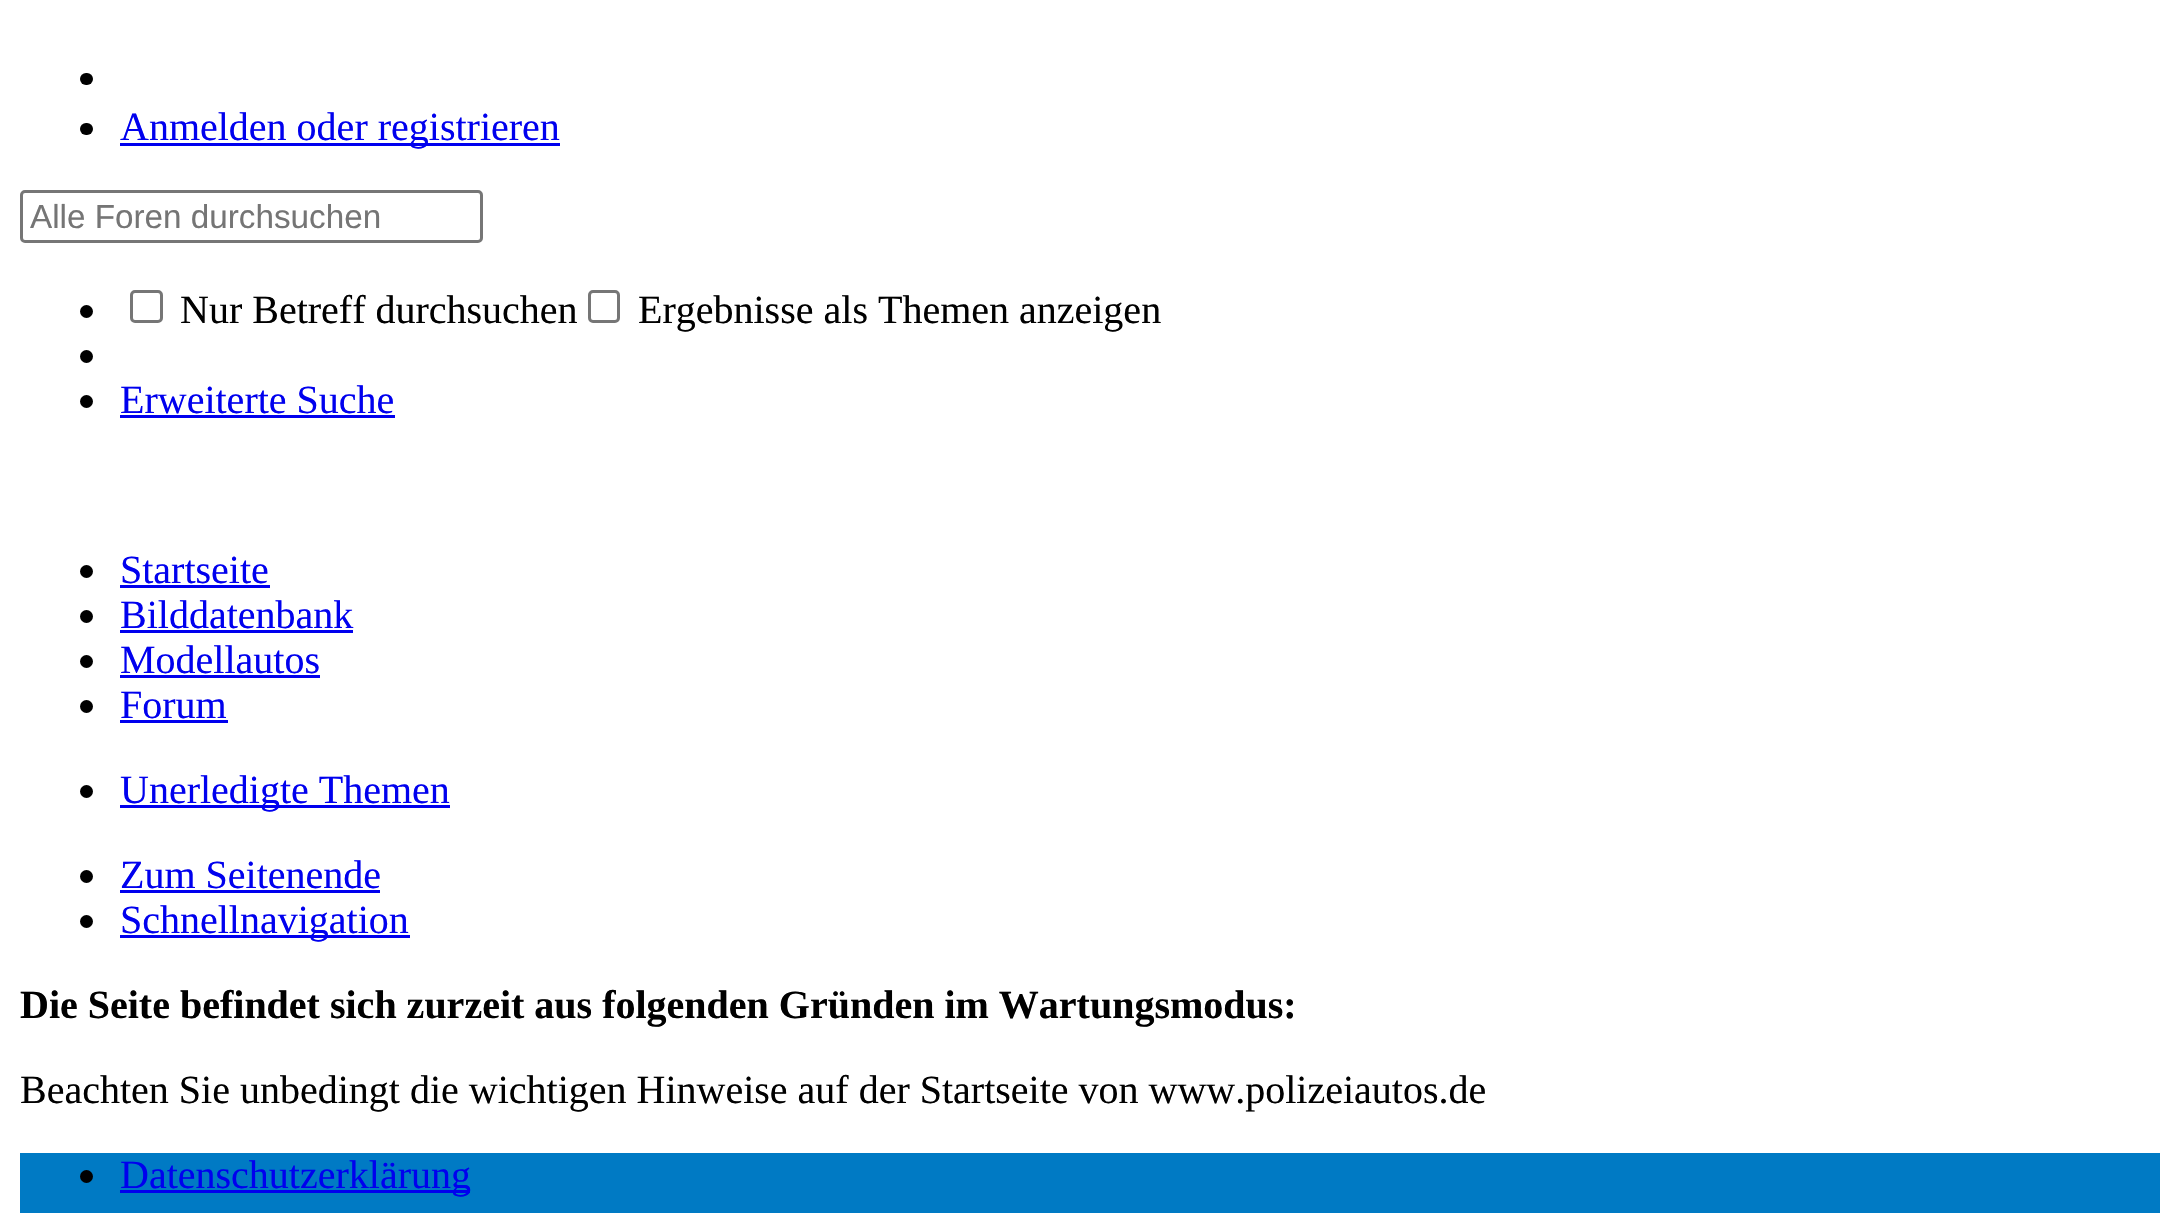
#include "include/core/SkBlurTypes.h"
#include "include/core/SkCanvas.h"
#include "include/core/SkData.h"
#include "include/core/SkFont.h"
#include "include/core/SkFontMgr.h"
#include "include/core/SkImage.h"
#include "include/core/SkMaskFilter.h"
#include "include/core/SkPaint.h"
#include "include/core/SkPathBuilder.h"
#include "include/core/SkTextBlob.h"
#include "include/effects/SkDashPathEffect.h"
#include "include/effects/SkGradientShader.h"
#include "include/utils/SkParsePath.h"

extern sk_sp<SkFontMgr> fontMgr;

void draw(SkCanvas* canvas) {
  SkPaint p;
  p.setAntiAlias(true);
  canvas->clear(SK_ColorWHITE);
  p.setColor(SK_ColorBLACK);
  canvas->drawRoundRect(SkRect::MakeLTRB(80, 73, 93, 85), 6, 6, p);
  canvas->drawRoundRect(SkRect::MakeLTRB(80, 123, 93, 135), 6, 6, p);
  p.setColor(SkColorSetRGB(0, 0, 238));
  canvas->drawRect(SkRect::MakeLTRB(120, 143, 560, 146), p);
  p.setStyle(SkPaint::kStroke_Style);
  p.setStrokeWidth(3);
  p.setColor(SkColorSetRGB(118, 118, 118));
  canvas->drawRoundRect(SkRect::MakeLTRB(21.5f, 191.5f, 481.5f, 241.5f), 3.5f, 3.5f, p);
  p.setStyle(SkPaint::kFill_Style);
  p.setColor(SK_ColorBLACK);
  canvas->drawCircle(86.5f, 311.5f, 6.5f, p);
  p.setStyle(SkPaint::kStroke_Style);
  p.setColor(SkColorSetRGB(118, 118, 118));
  canvas->drawRoundRect(SkRect::MakeLTRB(131.5f, 291.5f, 161.5f, 321.5f), 3.5f, 3.5f, p);
  canvas->drawRoundRect(SkRect::MakeLTRB(589.5f, 291.5f, 618.5f, 321.5f), 3.5f, 3.5f, p);
  p.setStyle(SkPaint::kFill_Style);
  p.setColor(SK_ColorBLACK);
  canvas->drawCircle(86.5f, 356.5f, 6.5f, p);
  canvas->drawCircle(86.5f, 401.5f, 6.5f, p);
  p.setColor(SkColorSetRGB(0, 0, 238));
  canvas->drawRect(SkRect::MakeLTRB(120, 415, 395, 418), p);
  p.setColor(SK_ColorBLACK);
  canvas->drawCircle(86.5f, 571.5f, 6.5f, p);
  p.setColor(SkColorSetRGB(0, 0, 238));
  canvas->drawRect(SkRect::MakeLTRB(120, 585, 270, 588), p);
  p.setColor(SK_ColorBLACK);
  canvas->drawCircle(86.5f, 616.5f, 6.5f, p);
  p.setColor(SkColorSetRGB(0, 0, 238));
  canvas->drawRect(SkRect::MakeLTRB(120, 630, 353, 633), p);
  p.setColor(SK_ColorBLACK);
  canvas->drawCircle(86.5f, 661.5f, 6.5f, p);
  p.setColor(SkColorSetRGB(0, 0, 238));
  canvas->drawRect(SkRect::MakeLTRB(120, 675, 320, 678), p);
  p.setColor(SK_ColorBLACK);
  canvas->drawCircle(86.5f, 706.5f, 6.5f, p);
  p.setColor(SkColorSetRGB(0, 0, 238));
  canvas->drawRect(SkRect::MakeLTRB(120, 720, 228, 723), p);
  p.setColor(SK_ColorBLACK);
  canvas->drawCircle(86.5f, 791.5f, 6.5f, p);
  p.setColor(SkColorSetRGB(0, 0, 238));
  canvas->drawRect(SkRect::MakeLTRB(120, 805, 450, 808), p);
  p.setColor(SK_ColorBLACK);
  canvas->drawCircle(86.5f, 876.5f, 6.5f, p);
  p.setColor(SkColorSetRGB(0, 0, 238));
  canvas->drawRect(SkRect::MakeLTRB(120, 890, 380, 893), p);
  p.setColor(SK_ColorBLACK);
  canvas->drawCircle(86.5f, 921.5f, 6.5f, p);
  p.setColor(SkColorSetRGB(0, 0, 238));
  canvas->drawRect(SkRect::MakeLTRB(120, 935, 410, 938), p);
  p.setColor(SkColorSetRGB(0, 122, 196));
  canvas->drawRect(SkRect::MakeLTRB(20, 1153, 2160, 1213), p);
  p.setColor(SK_ColorBLACK);
  canvas->drawCircle(86.5f, 1176.5f, 6.5f, p);
  p.setColor(SkColorSetRGB(0, 0, 238));
  canvas->drawRect(SkRect::MakeLTRB(120, 1190, 470, 1193), p);
  SkFont font1(fontMgr->matchFamilyStyle("Liberation Serif", SkFontStyle::Normal()), 40);
  font1.setSubpixel(true);
  canvas->drawString("Anmelden oder registrieren", 120, 140, font1, p);
  SkFont font2(fontMgr->matchFamilyStyle("Liberation Sans", SkFontStyle::Normal()), 33.25f);
  font2.setSubpixel(true);
  p.setColor(SkColorSetRGB(117, 117, 117));
  canvas->drawString("Alle Foren durchsuchen", 30, 228, font2, p);
  p.setColor(SK_ColorBLACK);
  canvas->drawString("Nur Betreff durchsuchen", 180, 323, font1, p);
  canvas->drawString("Ergebnisse als Themen anzeigen", 638, 323, font1, p);
  p.setColor(SkColorSetRGB(0, 0, 238));
  canvas->drawString("Erweiterte Suche", 120, 413, font1, p);
  canvas->drawString("Startseite", 120, 583, font1, p);
  canvas->drawString("Bilddatenbank", 120, 628, font1, p);
  canvas->drawString("Modellautos", 120, 673, font1, p);
  canvas->drawString("Forum", 120, 718, font1, p);
  canvas->drawString("Unerledigte Themen", 120, 803, font1, p);
  canvas->drawString("Zum Seitenende", 120, 888, font1, p);
  canvas->drawString("Schnellnavigation", 120, 933, font1, p);
  SkFont font3(fontMgr->matchFamilyStyle("Liberation Serif", SkFontStyle::Bold()), 40);
  font3.setSubpixel(true);
  p.setColor(SK_ColorBLACK);
  canvas->drawString("Die Seite befindet sich zurzeit aus folgenden Gründen im Wartungsmodus:", 20, 1018, font3, p);
  canvas->drawString("Beachten Sie unbedingt die wichtigen Hinweise auf der Startseite von www.polizeiautos.de", 20, 1103, font1, p);
  p.setColor(SkColorSetRGB(0, 0, 238));
  canvas->drawString("Datenschutzerklärung", 120, 1188, font1, p);
}
